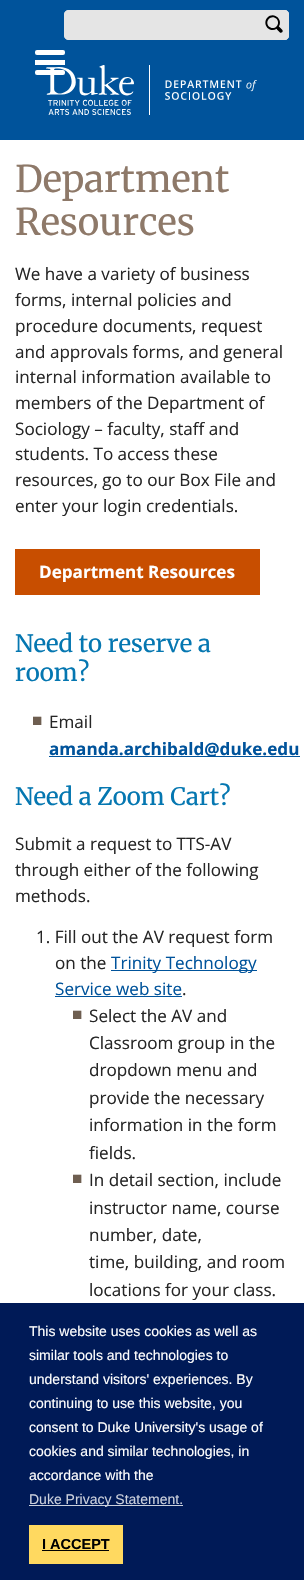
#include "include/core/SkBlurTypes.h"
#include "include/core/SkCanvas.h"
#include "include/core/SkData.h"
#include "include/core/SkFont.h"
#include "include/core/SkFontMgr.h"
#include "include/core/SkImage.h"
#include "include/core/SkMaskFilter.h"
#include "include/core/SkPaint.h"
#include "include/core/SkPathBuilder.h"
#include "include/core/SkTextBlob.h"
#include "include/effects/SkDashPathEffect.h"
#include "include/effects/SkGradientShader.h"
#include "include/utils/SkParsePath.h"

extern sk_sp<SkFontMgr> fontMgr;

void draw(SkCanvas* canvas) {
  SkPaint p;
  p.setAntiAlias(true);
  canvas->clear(SK_ColorWHITE);
  p.setColor(SkColorSetRGB(0, 83, 155));
  canvas->drawRect(SkRect::MakeLTRB(0, 0, 304, 140), p);
  p.setColor(SkColorSetRGB(229, 229, 229));
  canvas->drawPath(SkPathBuilder().moveTo(68, 10.5f).lineTo(263.5f, 10.5f).lineTo(263.5f, 39.5f).lineTo(68, 39.5f).cubicTo(66, 39.5f, 64.5f, 38, 64.5f, 36).lineTo(64.5f, 14).cubicTo(64.5f, 12, 66, 10.5f, 68, 10.5f).close().detach(), p);
  p.setStyle(SkPaint::kStroke_Style);
  p.setStrokeWidth(1);
  canvas->drawPath(SkPathBuilder().moveTo(68, 10.5f).lineTo(263.5f, 10.5f).lineTo(263.5f, 39.5f).lineTo(68, 39.5f).cubicTo(66, 39.5f, 64.5f, 38, 64.5f, 36).lineTo(64.5f, 14).cubicTo(64.5f, 12, 66, 10.5f, 68, 10.5f).close().detach(), p);
  p.setStyle(SkPaint::kFill_Style);
  canvas->drawPath(SkPathBuilder().moveTo(259, 10).lineTo(285, 10).cubicTo(287, 10, 289, 12, 289, 14).lineTo(289, 36).cubicTo(289, 38, 287, 40, 285, 40).lineTo(259, 40).close().detach(), p);
  canvas->drawImageRect(SkImages::DeferredFromEncodedData(SkData::MakeFromFileName("images/1.png")), SkRect::MakeLTRB(265, 15, 283, 33), SkSamplingOptions());
  p.setStyle(SkPaint::kStroke_Style);
  canvas->drawPath(SkPathBuilder().moveTo(259.5f, 10.5f).lineTo(285, 10.5f).cubicTo(287, 10.5f, 288.5f, 12, 288.5f, 14).lineTo(288.5f, 36).cubicTo(288.5f, 38, 287, 39.5f, 285, 39.5f).lineTo(259.5f, 39.5f).close().detach(), p);
  p.setStyle(SkPaint::kFill_Style);
  p.setColor(SK_ColorWHITE);
  canvas->drawRoundRect(SkRect::MakeLTRB(35, 50, 65, 55), 2, 2, p);
  canvas->drawRect(SkRect::MakeLTRB(35, 60, 65, 65), p);
  canvas->drawImageRect(SkImages::DeferredFromEncodedData(SkData::MakeFromFileName("images/2.png")), SkRect::MakeLTRB(46, 65, 134, 115), SkSamplingOptions());
  canvas->drawRoundRect(SkRect::MakeLTRB(35, 70, 65, 75), 2, 2, p);
  canvas->drawRect(SkRect::MakeLTRB(149, 65, 150, 115), p);
  canvas->drawImageRect(SkImages::DeferredFromEncodedData(SkData::MakeFromFileName("images/3.png")), SkRect::MakeLTRB(165, 80, 257, 100), SkSamplingOptions());
  p.setColor(SkColorSetRGB(200, 78, 0));
  canvas->drawRect(SkRect::MakeLTRB(15, 549, 260, 595), p);
  p.setColor(SkColorSetRGB(0, 83, 155));
  canvas->drawRect(SkRect::MakeLTRB(49, 756, 300, 757), p);
  canvas->drawRect(SkRect::MakeLTRB(111, 970, 257, 971), p);
  canvas->drawRect(SkRect::MakeLTRB(55, 996, 182, 997), p);
  p.setColor(SkColorSetRGB(0, 26, 87));
  canvas->drawRect(SkRect::MakeLTRB(0, 1303, 304, 1580), p);
  p.setColor(SkColorSetRGB(204, 209, 221));
  canvas->drawRect(SkRect::MakeLTRB(29, 1505, 183, 1506), p);
  p.setColor(SkColorSetRGB(255, 217, 96));
  canvas->drawRect(SkRect::MakeLTRB(29, 1525, 123, 1564), p);
  p.setColor(SK_ColorBLACK);
  canvas->drawRect(SkRect::MakeLTRB(42, 1550, 109, 1551), p);
  SkFont font1(fontMgr->matchFamilyStyle("Merriweather", SkFontStyle::Normal()), 36.75f);
  font1.setSubpixel(true);
  p.setColor(SkColorSetRGB(142, 121, 105));
  canvas->drawString("Department", 15, 192, font1, p);
  canvas->drawString("Resources", 15, 235, font1, p);
  SkFont font2(fontMgr->matchFamilyStyle("Open Sans", SkFontStyle::Normal()), 17.1f);
  font2.setSubpixel(true);
  p.setColor(SkColorSetRGB(38, 38, 38));
  canvas->drawString("We have a variety of business", 15, 280, font2, p);
  canvas->drawString("forms, internal policies and", 15, 306, font2, p);
  canvas->drawString("procedure documents, request", 15, 332, font2, p);
  canvas->drawString("and approvals forms, and general", 15, 358, font2, p);
  canvas->drawString("internal information available to", 15, 383, font2, p);
  canvas->drawString("members of the Department of", 15, 409, font2, p);
  canvas->drawString("Sociology – faculty, staff and", 15, 435, font2, p);
  canvas->drawString("students. To access these", 15, 460, font2, p);
  canvas->drawString("resources, go to our Box File and", 15, 486, font2, p);
  canvas->drawString("enter your login credentials.", 15, 512, font2, p);
  SkFont font3(fontMgr->matchFamilyStyle("Open Sans", SkFontStyle::Bold()), 17.1f);
  font3.setSubpixel(true);
  p.setColor(SK_ColorWHITE);
  canvas->drawString("Department Resources", 39, 578, font3, p);
  SkFont font4(fontMgr->matchFamilyStyle("Merriweather", SkFontStyle::Normal()), 24);
  font4.setSubpixel(true);
  p.setColor(SkColorSetRGB(5, 119, 177));
  canvas->drawString("Need to reserve a", 15, 652, font4, p);
  canvas->drawString("room?", 15, 681, font4, p);
  SkFont font5(fontMgr->matchFamilyStyle("Liberation Sans", SkFontStyle::Bold()), 17.1f);
  font5.setSubpixel(true);
  p.setColor(SkColorSetRGB(110, 94, 80));
  canvas->drawString("■", 32, 726, font5, p);
  p.setColor(SkColorSetRGB(38, 38, 38));
  canvas->drawString("Email", 49, 728, font2, p);
  p.setColor(SkColorSetRGB(0, 83, 155));
  canvas->drawString("amanda.archibald@duke.edu", 49, 755, font3, p);
  p.setColor(SkColorSetRGB(5, 119, 177));
  canvas->drawString("Need a Zoom Cart?", 15, 805, font4, p);
  p.setColor(SkColorSetRGB(38, 38, 38));
  canvas->drawString("Submit a request to TTS-AV", 15, 850, font2, p);
  canvas->drawString("through either of the following", 15, 876, font2, p);
  canvas->drawString("methods.", 15, 902, font2, p);
  canvas->drawString("1. Fill out the AV request form", 36, 943, font2, p);
  canvas->drawString("on the", 55, 969, font2, p);
  p.setColor(SkColorSetRGB(0, 83, 155));
  canvas->drawString("Trinity Technology", 111, 969, font2, p);
  canvas->drawString("Service web site", 55, 995, font2, p);
  p.setColor(SkColorSetRGB(38, 38, 38));
  canvas->drawString(".", 182, 995, font2, p);
  p.setColor(SkColorSetRGB(110, 94, 80));
  canvas->drawString("■", 72, 1020, font5, p);
  p.setColor(SkColorSetRGB(38, 38, 38));
  canvas->drawString("Select the AV and", 89, 1022, font2, p);
  canvas->drawString("Classroom group in the", 89, 1049, font2, p);
  canvas->drawString("dropdown menu and", 89, 1076, font2, p);
  canvas->drawString("provide the necessary", 89, 1104, font2, p);
  canvas->drawString("information in the form", 89, 1131, font2, p);
  canvas->drawString("fields.", 89, 1159, font2, p);
  p.setColor(SkColorSetRGB(110, 94, 80));
  canvas->drawString("■", 72, 1184, font5, p);
  p.setColor(SkColorSetRGB(38, 38, 38));
  canvas->drawString("In detail section, include", 89, 1186, font2, p);
  canvas->drawString("instructor name, course", 89, 1214, font2, p);
  canvas->drawString("number, date,", 89, 1241, font2, p);
  canvas->drawString("time, building, and room", 89, 1268, font2, p);
  canvas->drawString("locations for your class.", 89, 1296, font2, p);
  SkFont font6(fontMgr->matchFamilyStyle("Liberation Sans", SkFontStyle::Normal()), 14);
  font6.setSubpixel(true);
  p.setColor(SK_ColorWHITE);
  canvas->drawString("This website uses cookies as well as", 29, 1336, font6, p);
  canvas->drawString("similar tools and technologies to", 29, 1360, font6, p);
  canvas->drawString("understand visitors' experiences. By", 29, 1384, font6, p);
  canvas->drawString("continuing to use this website, you", 29, 1408, font6, p);
  canvas->drawString("consent to Duke University's usage of", 29, 1432, font6, p);
  canvas->drawString("cookies and similar technologies, in", 29, 1456, font6, p);
  canvas->drawString("accordance with the", 29, 1480, font6, p);
  p.setColor(SkColorSetRGB(204, 209, 221));
  canvas->drawString("Duke Privacy Statement.", 29, 1504, font6, p);
  SkFont font7(fontMgr->matchFamilyStyle("Liberation Sans", SkFontStyle::Bold()), 14.5f);
  font7.setSubpixel(true);
  p.setColor(SK_ColorBLACK);
  canvas->drawString("I ACCEPT", 42, 1549, font7, p);
}
